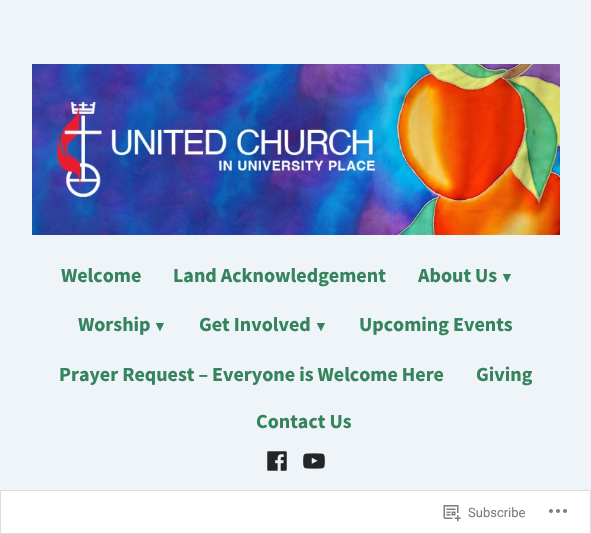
#include "include/core/SkBlurTypes.h"
#include "include/core/SkCanvas.h"
#include "include/core/SkData.h"
#include "include/core/SkFont.h"
#include "include/core/SkFontMgr.h"
#include "include/core/SkImage.h"
#include "include/core/SkMaskFilter.h"
#include "include/core/SkPaint.h"
#include "include/core/SkPathBuilder.h"
#include "include/core/SkTextBlob.h"
#include "include/effects/SkDashPathEffect.h"
#include "include/effects/SkGradientShader.h"
#include "include/utils/SkParsePath.h"

extern sk_sp<SkFontMgr> fontMgr;

void draw(SkCanvas* canvas) {
  SkPaint p;
  p.setAntiAlias(true);
  canvas->clear(SkColorSetRGB(238, 244, 247));
  p.setColor(SK_ColorWHITE);
  canvas->drawRect(SkRect::MakeLTRB(0, 490, 591, 534), p);
  canvas->drawImageRect(SkImages::DeferredFromEncodedData(SkData::MakeFromFileName("images/1.png")), SkRect::MakeLTRB(32, 64, 560, 235), SkSamplingOptions());
  canvas->drawImageRect(SkImages::DeferredFromEncodedData(SkData::MakeFromFileName("images/2.png")), SkRect::MakeLTRB(267, 451, 287, 471), SkSamplingOptions());
  canvas->drawImageRect(SkImages::DeferredFromEncodedData(SkData::MakeFromFileName("images/3.png")), SkRect::MakeLTRB(303, 453, 325, 469), SkSamplingOptions());
  p.setStyle(SkPaint::kStroke_Style);
  p.setStrokeWidth(1);
  p.setColor(SkColorSetARGB(250, 220, 220, 222));
  canvas->drawRect(SkRect::MakeLTRB(0.5f, 490.5f, 590.5f, 533.5f), p);
  canvas->drawImageRect(SkImages::DeferredFromEncodedData(SkData::MakeFromFileName("images/4.png")), SkRect::MakeLTRB(443, 505, 461, 522), SkSamplingOptions());
  canvas->drawImageRect(SkImages::DeferredFromEncodedData(SkData::MakeFromFileName("images/5.png")), SkRect::MakeLTRB(549, 509, 567, 513), SkSamplingOptions());
  SkFont font1(fontMgr->matchFamilyStyle("Source Sans Pro", SkFontStyle::Bold()), 20);
  font1.setSubpixel(true);
  p.setStyle(SkPaint::kFill_Style);
  p.setColor(SkColorSetRGB(53, 132, 93));
  canvas->drawString("Welcome", 61, 282, font1, p);
  canvas->drawString("Land Acknowledgement", 173, 282, font1, p);
  canvas->drawString("About Us", 418, 282, font1, p);
  SkFont font2(fontMgr->matchFamilyStyle("Liberation Sans", SkFontStyle::Bold()), 14);
  font2.setSubpixel(true);
  canvas->drawString("▼", 500, 282, font2, p);
  canvas->drawString("Worship", 78, 331, font1, p);
  canvas->drawString("▼", 153, 331, font2, p);
  canvas->drawString("Get Involved", 199, 331, font1, p);
  canvas->drawString("▼", 314, 331, font2, p);
  canvas->drawString("Upcoming Events", 359, 331, font1, p);
  canvas->drawString("Prayer Request – Everyone is Welcome Here", 59, 381, font1, p);
  canvas->drawString("Giving", 476, 381, font1, p);
  canvas->drawString("Contact Us", 256, 428, font1, p);
  SkFont font3(fontMgr->matchFamilyStyle("Roboto", SkFontStyle::Normal()), 13);
  font3.setSubpixel(true);
  p.setColor(SkColorSetRGB(122, 126, 132));
  canvas->drawString("Subscribe", 468, 517, font3, p);
}
